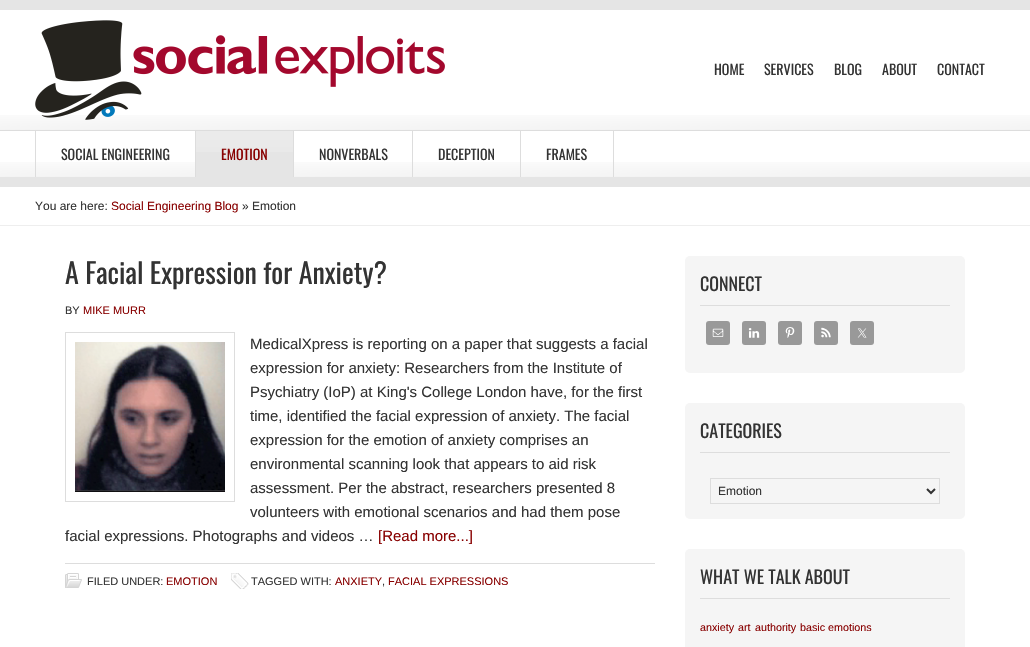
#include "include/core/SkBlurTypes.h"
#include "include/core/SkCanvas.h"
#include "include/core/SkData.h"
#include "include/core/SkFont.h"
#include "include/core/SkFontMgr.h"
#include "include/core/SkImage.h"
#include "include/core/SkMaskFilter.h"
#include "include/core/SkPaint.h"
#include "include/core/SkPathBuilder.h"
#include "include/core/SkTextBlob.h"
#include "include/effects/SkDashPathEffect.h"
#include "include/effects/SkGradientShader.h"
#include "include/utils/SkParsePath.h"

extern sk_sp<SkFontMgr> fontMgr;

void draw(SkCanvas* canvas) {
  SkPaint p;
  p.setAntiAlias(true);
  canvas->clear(SK_ColorWHITE);
  canvas->drawImageRect(SkImages::DeferredFromEncodedData(SkData::MakeFromFileName("images/1.png")), SkRect::MakeLTRB(0, 115, 1030, 130), SkSamplingOptions());
  p.setColor(SkColorSetRGB(229, 229, 229));
  canvas->drawRect(SkRect::MakeLTRB(0, 0, 1030, 10), p);
  canvas->drawImageRect(SkImages::DeferredFromEncodedData(SkData::MakeFromFileName("images/2.png")), SkRect::MakeLTRB(35, 20, 445, 120), SkSamplingOptions());
  canvas->drawImageRect(SkImages::DeferredFromEncodedData(SkData::MakeFromFileName("images/1.png")), SkRect::MakeLTRB(0, 162, 1030, 177), SkSamplingOptions());
  p.setColor(SkColorSetRGB(221, 221, 221));
  canvas->drawRect(SkRect::MakeLTRB(0, 130, 1030, 131), p);
  p.setColor(SkColorSetRGB(229, 229, 229));
  canvas->drawRect(SkRect::MakeLTRB(0, 177, 1030, 187), p);
  p.setColor(SkColorSetRGB(221, 221, 221));
  canvas->drawRect(SkRect::MakeLTRB(35, 131, 36, 177), p);
  canvas->drawRect(SkRect::MakeLTRB(195, 131, 196, 177), p);
  p.setColor(SkColorSetRGB(229, 229, 229));
  canvas->drawRect(SkRect::MakeLTRB(196, 131, 293, 177), p);
  canvas->drawImageRect(SkImages::DeferredFromEncodedData(SkData::MakeFromFileName("images/3.png")), SkRect::MakeLTRB(196, 131, 293, 152), SkSamplingOptions());
  p.setColor(SkColorSetRGB(221, 221, 221));
  canvas->drawRect(SkRect::MakeLTRB(293, 131, 294, 177), p);
  canvas->drawRect(SkRect::MakeLTRB(412, 131, 413, 177), p);
  canvas->drawRect(SkRect::MakeLTRB(520, 131, 521, 177), p);
  canvas->drawRect(SkRect::MakeLTRB(613, 131, 614, 177), p);
  p.setColor(SkColorSetRGB(238, 238, 238));
  canvas->drawRect(SkRect::MakeLTRB(0, 225, 1030, 226), p);
  p.setStyle(SkPaint::kStroke_Style);
  p.setStrokeWidth(1);
  p.setColor(SkColorSetRGB(221, 221, 221));
  canvas->drawRect(SkRect::MakeLTRB(65.5f, 332.5f, 234.5f, 501.5f), p);
  canvas->drawImageRect(SkImages::DeferredFromEncodedData(SkData::MakeFromFileName("images/4.png")), SkRect::MakeLTRB(75, 342, 225, 492), SkSamplingOptions());
  p.setStyle(SkPaint::kFill_Style);
  canvas->drawRect(SkRect::MakeLTRB(65, 563, 655, 564), p);
  canvas->drawImageRect(SkImages::DeferredFromEncodedData(SkData::MakeFromFileName("images/5.png")), SkRect::MakeLTRB(65, 573, 82, 588), SkSamplingOptions());
  canvas->drawImageRect(SkImages::DeferredFromEncodedData(SkData::MakeFromFileName("images/6.png")), SkRect::MakeLTRB(231, 573, 249, 589), SkSamplingOptions());
  p.setColor(SkColorSetRGB(245, 245, 245));
  canvas->drawRoundRect(SkRect::MakeLTRB(685, 256, 965, 373), 5, 5, p);
  p.setColor(SkColorSetRGB(221, 221, 221));
  canvas->drawRect(SkRect::MakeLTRB(700, 305, 950, 306), p);
  p.setColor(SkColorSetRGB(153, 153, 153));
  canvas->drawRoundRect(SkRect::MakeLTRB(706, 321, 730, 345), 3, 3, p);
  canvas->drawImageRect(SkImages::DeferredFromEncodedData(SkData::MakeFromFileName("images/7.png")), SkRect::MakeLTRB(712, 328, 724, 337), SkSamplingOptions());
  canvas->drawRoundRect(SkRect::MakeLTRB(742, 321, 766, 345), 3, 3, p);
  canvas->drawImageRect(SkImages::DeferredFromEncodedData(SkData::MakeFromFileName("images/8.png")), SkRect::MakeLTRB(748, 328, 760, 338), SkSamplingOptions());
  canvas->drawRoundRect(SkRect::MakeLTRB(778, 321, 802, 345), 3, 3, p);
  canvas->drawImageRect(SkImages::DeferredFromEncodedData(SkData::MakeFromFileName("images/9.png")), SkRect::MakeLTRB(785, 327, 795, 338), SkSamplingOptions());
  canvas->drawRoundRect(SkRect::MakeLTRB(814, 321, 838, 345), 3, 3, p);
  canvas->drawImageRect(SkImages::DeferredFromEncodedData(SkData::MakeFromFileName("images/10.png")), SkRect::MakeLTRB(821, 327, 831, 338), SkSamplingOptions());
  canvas->drawRoundRect(SkRect::MakeLTRB(850, 321, 874, 345), 3, 3, p);
  canvas->drawImageRect(SkImages::DeferredFromEncodedData(SkData::MakeFromFileName("images/11.png")), SkRect::MakeLTRB(857, 328, 867, 338), SkSamplingOptions());
  p.setColor(SkColorSetRGB(245, 245, 245));
  canvas->drawRoundRect(SkRect::MakeLTRB(685, 403, 965, 519), 5, 5, p);
  p.setColor(SkColorSetRGB(221, 221, 221));
  canvas->drawRect(SkRect::MakeLTRB(700, 452, 950, 453), p);
  p.setStyle(SkPaint::kStroke_Style);
  canvas->drawRect(SkRect::MakeLTRB(710.5f, 478.5f, 939.5f, 503.5f), p);
  p.setStrokeWidth(2);
  p.setColor(SkColorSetRGB(51, 51, 51));
  canvas->drawPath(SkPathBuilder().moveTo(927, 489).lineTo(931, 493).lineTo(935, 489).detach(), p);
  p.setStyle(SkPaint::kFill_Style);
  p.setColor(SkColorSetRGB(245, 245, 245));
  canvas->drawRoundRect(SkRect::MakeLTRB(685, 549, 965, 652), 5, 5, p);
  p.setColor(SkColorSetRGB(221, 221, 221));
  canvas->drawRect(SkRect::MakeLTRB(700, 598, 950, 599), p);
  SkFont font1(fontMgr->matchFamilyStyle("Oswald", SkFontStyle::Normal()), 14);
  font1.setSubpixel(true);
  p.setColor(SkColorSetRGB(51, 51, 51));
  canvas->drawString("HOME", 714, 75, font1, p);
  canvas->drawString("SERVICES", 764, 75, font1, p);
  canvas->drawString("BLOG", 834, 75, font1, p);
  canvas->drawString("ABOUT", 882, 75, font1, p);
  canvas->drawString("CONTACT", 937, 75, font1, p);
  canvas->drawString("SOCIAL ENGINEERING", 61, 160, font1, p);
  p.setColor(SkColorSetRGB(136, 0, 0));
  canvas->drawString("EMOTION", 221, 160, font1, p);
  p.setColor(SkColorSetRGB(51, 51, 51));
  canvas->drawString("NONVERBALS", 319, 160, font1, p);
  canvas->drawString("DECEPTION", 438, 160, font1, p);
  canvas->drawString("FRAMES", 546, 160, font1, p);
  SkFont font2(fontMgr->matchFamilyStyle("Liberation Sans", SkFontStyle::Normal()), 12);
  font2.setSubpixel(true);
  canvas->drawString("You are here:", 35, 210, font2, p);
  p.setColor(SkColorSetRGB(136, 0, 0));
  canvas->drawString("Social Engineering Blog", 111, 210, font2, p);
  p.setColor(SkColorSetRGB(51, 51, 51));
  canvas->drawString("» Emotion", 242, 210, font2, p);
  SkFont font3(fontMgr->matchFamilyStyle("Oswald", SkFontStyle::Normal()), 28);
  font3.setSubpixel(true);
  canvas->drawString("A Facial Expression for Anxiety?", 65, 284, font3, p);
  SkFont font4(fontMgr->matchFamilyStyle("Liberation Sans", SkFontStyle::Normal()), 11);
  font4.setSubpixel(true);
  canvas->drawString("BY", 65, 314, font4, p);
  p.setColor(SkColorSetRGB(136, 0, 0));
  canvas->drawString("MIKE MURR", 83, 314, font4, p);
  SkFont font5(fontMgr->matchFamilyStyle("Liberation Sans", SkFontStyle::Normal()), 15);
  font5.setSubpixel(true);
  p.setColor(SkColorSetRGB(51, 51, 51));
  canvas->drawString("MedicalXpress is reporting on a paper that suggests a facial", 250, 349, font5, p);
  canvas->drawString("expression for anxiety: Researchers from the Institute of", 250, 373, font5, p);
  canvas->drawString("Psychiatry (IoP) at King's College London have, for the first", 250, 397, font5, p);
  canvas->drawString("time, identified the facial expression of anxiety. The facial", 250, 421, font5, p);
  canvas->drawString("expression for the emotion of anxiety comprises an", 250, 445, font5, p);
  canvas->drawString("environmental scanning look that appears to aid risk", 250, 469, font5, p);
  canvas->drawString("assessment. Per the abstract, researchers presented 8", 250, 493, font5, p);
  canvas->drawString("volunteers with emotional scenarios and had them pose", 250, 517, font5, p);
  canvas->drawString("facial expressions. Photographs and videos …", 65, 541, font5, p);
  p.setColor(SkColorSetRGB(136, 0, 0));
  canvas->drawString("[Read more...]", 378, 541, font5, p);
  p.setColor(SkColorSetRGB(51, 51, 51));
  canvas->drawString("FILED UNDER:", 87, 585, font4, p);
  p.setColor(SkColorSetRGB(136, 0, 0));
  canvas->drawString("EMOTION", 166, 585, font4, p);
  p.setColor(SkColorSetRGB(51, 51, 51));
  canvas->drawString("TAGGED WITH:", 251, 585, font4, p);
  p.setColor(SkColorSetRGB(136, 0, 0));
  canvas->drawString("ANXIETY", 335, 585, font4, p);
  p.setColor(SkColorSetRGB(51, 51, 51));
  canvas->drawString(",", 382, 585, font4, p);
  p.setColor(SkColorSetRGB(136, 0, 0));
  canvas->drawString("FACIAL EXPRESSIONS", 388, 585, font4, p);
  SkFont font6(fontMgr->matchFamilyStyle("Oswald", SkFontStyle::Normal()), 18);
  font6.setSubpixel(true);
  p.setColor(SkColorSetRGB(51, 51, 51));
  canvas->drawString("CONNECT", 700, 291, font6, p);
  canvas->drawString("CATEGORIES", 700, 438, font6, p);
  canvas->drawString("Emotion", 718, 495, font2, p);
  canvas->drawString("WHAT WE TALK ABOUT", 700, 584, font6, p);
  SkFont font7(fontMgr->matchFamilyStyle("Liberation Sans", SkFontStyle::Normal()), 10.75f);
  font7.setSubpixel(true);
  p.setColor(SkColorSetRGB(136, 0, 0));
  canvas->drawString("anxiety", 700, 631, font7, p);
  canvas->drawString("art", 738, 631, font7, p);
  canvas->drawString("authority", 755, 631, font7, p);
  canvas->drawString("basic emotions", 800, 631, font7, p);
}
